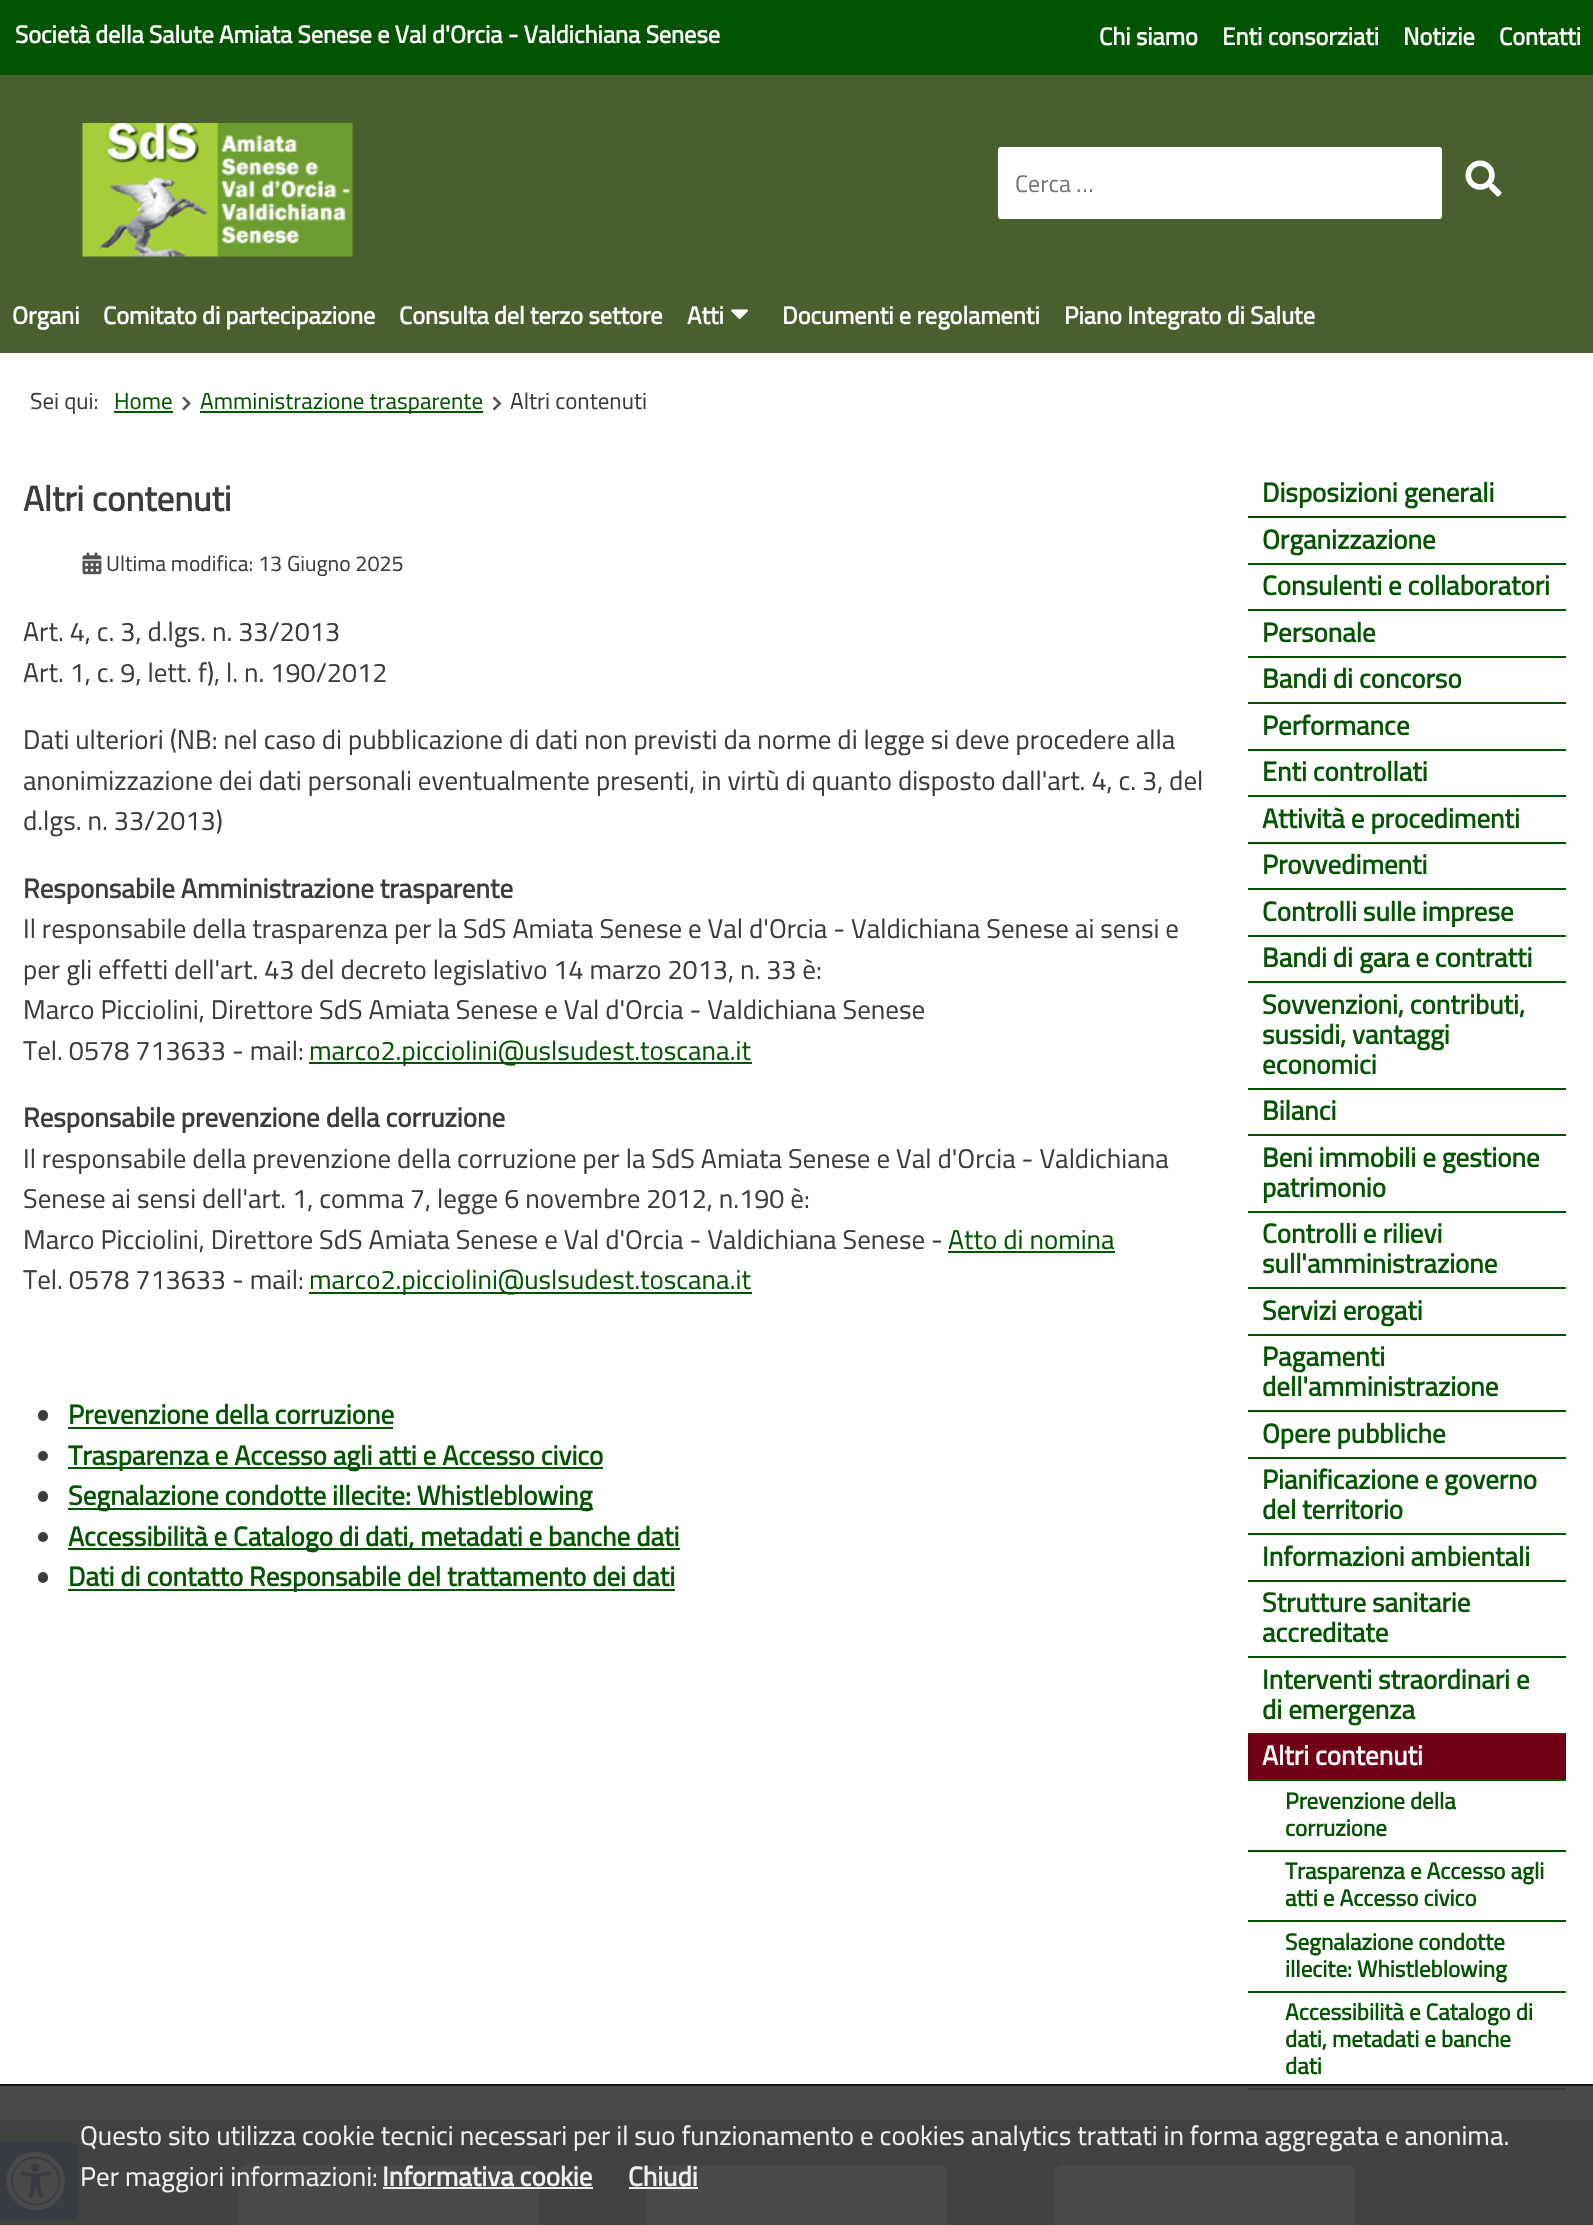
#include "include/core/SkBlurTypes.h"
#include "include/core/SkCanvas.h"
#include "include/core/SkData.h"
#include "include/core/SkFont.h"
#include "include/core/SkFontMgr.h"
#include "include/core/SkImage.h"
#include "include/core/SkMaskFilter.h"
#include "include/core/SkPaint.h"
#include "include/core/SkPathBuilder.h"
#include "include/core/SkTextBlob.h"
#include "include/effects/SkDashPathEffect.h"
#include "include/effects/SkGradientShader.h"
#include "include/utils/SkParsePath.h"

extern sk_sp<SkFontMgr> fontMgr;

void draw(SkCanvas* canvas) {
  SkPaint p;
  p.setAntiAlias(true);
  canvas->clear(SK_ColorWHITE);
  p.setColor(SkColorSetRGB(74, 74, 74));
  canvas->drawRect(SkRect::MakeLTRB(0, 2086, 1593, 2120), p);
  p.setColor(SkColorSetRGB(3, 84, 0));
  canvas->drawRect(SkRect::MakeLTRB(0, 0, 1593, 75), p);
  p.setColor(SkColorSetRGB(73, 96, 46));
  canvas->drawRect(SkRect::MakeLTRB(0, 75, 1593, 353), p);
  canvas->drawImageRect(SkImages::DeferredFromEncodedData(SkData::MakeFromFileName("images/1.png")), SkRect::MakeLTRB(82, 123, 353, 257), SkSamplingOptions());
  p.setColor(SK_ColorWHITE);
  canvas->drawRoundRect(SkRect::MakeLTRB(998, 147, 1442, 219), 3, 3, p);
  canvas->drawImageRect(SkImages::DeferredFromEncodedData(SkData::MakeFromFileName("images/2.png")), SkRect::MakeLTRB(1465, 160, 1502, 197), SkSamplingOptions());
  canvas->drawImageRect(SkImages::DeferredFromEncodedData(SkData::MakeFromFileName("images/3.png")), SkRect::MakeLTRB(731, 309, 749, 319), SkSamplingOptions());
  p.setColor(SkColorSetRGB(3, 84, 0));
  canvas->drawRect(SkRect::MakeLTRB(114, 411, 173, 413), p);
  canvas->drawImageRect(SkImages::DeferredFromEncodedData(SkData::MakeFromFileName("images/4.png")), SkRect::MakeLTRB(182, 396, 191, 411), SkSamplingOptions());
  canvas->drawRect(SkRect::MakeLTRB(200, 411, 483, 413), p);
  canvas->drawImageRect(SkImages::DeferredFromEncodedData(SkData::MakeFromFileName("images/5.png")), SkRect::MakeLTRB(492, 396, 502, 411), SkSamplingOptions());
  canvas->drawImageRect(SkImages::DeferredFromEncodedData(SkData::MakeFromFileName("images/6.png")), SkRect::MakeLTRB(82, 552, 102, 575), SkSamplingOptions());
  canvas->drawRect(SkRect::MakeLTRB(309, 1062, 752, 1064), p);
  canvas->drawRect(SkRect::MakeLTRB(948, 1251, 1115, 1253), p);
  canvas->drawRect(SkRect::MakeLTRB(309, 1292, 752, 1294), p);
  p.setColor(SkColorSetRGB(60, 60, 60));
  canvas->drawRoundRect(SkRect::MakeLTRB(38, 1410, 48, 1421), 5, 5, p);
  p.setColor(SkColorSetRGB(3, 84, 0));
  canvas->drawRect(SkRect::MakeLTRB(68, 1427, 393, 1429), p);
  p.setColor(SkColorSetRGB(60, 60, 60));
  canvas->drawCircle(43, 1456, 5, p);
  p.setColor(SkColorSetRGB(3, 84, 0));
  canvas->drawRect(SkRect::MakeLTRB(68, 1467, 603, 1469), p);
  p.setColor(SkColorSetRGB(60, 60, 60));
  canvas->drawRoundRect(SkRect::MakeLTRB(38, 1491, 48, 1502), 5, 5, p);
  p.setColor(SkColorSetRGB(3, 84, 0));
  canvas->drawRect(SkRect::MakeLTRB(68, 1508, 593, 1510), p);
  p.setColor(SkColorSetRGB(60, 60, 60));
  canvas->drawCircle(43, 1537, 5, p);
  p.setColor(SkColorSetRGB(3, 84, 0));
  canvas->drawRect(SkRect::MakeLTRB(68, 1548, 680, 1550), p);
  p.setColor(SkColorSetRGB(60, 60, 60));
  canvas->drawRoundRect(SkRect::MakeLTRB(38, 1572, 48, 1583), 5, 5, p);
  p.setColor(SkColorSetRGB(3, 84, 0));
  canvas->drawRect(SkRect::MakeLTRB(68, 1589, 675, 1591), p);
  canvas->drawRect(SkRect::MakeLTRB(1248, 516, 1566, 518), p);
  canvas->drawRect(SkRect::MakeLTRB(1248, 563, 1566, 565), p);
  canvas->drawRect(SkRect::MakeLTRB(1248, 609, 1566, 611), p);
  canvas->drawRect(SkRect::MakeLTRB(1248, 656, 1566, 658), p);
  canvas->drawRect(SkRect::MakeLTRB(1248, 702, 1566, 704), p);
  canvas->drawRect(SkRect::MakeLTRB(1248, 749, 1566, 751), p);
  canvas->drawRect(SkRect::MakeLTRB(1248, 795, 1566, 797), p);
  canvas->drawRect(SkRect::MakeLTRB(1248, 842, 1566, 844), p);
  canvas->drawRect(SkRect::MakeLTRB(1248, 888, 1566, 890), p);
  canvas->drawRect(SkRect::MakeLTRB(1248, 935, 1566, 937), p);
  canvas->drawRect(SkRect::MakeLTRB(1248, 981, 1566, 983), p);
  canvas->drawRect(SkRect::MakeLTRB(1248, 1088, 1566, 1090), p);
  canvas->drawRect(SkRect::MakeLTRB(1248, 1134, 1566, 1136), p);
  canvas->drawRect(SkRect::MakeLTRB(1248, 1211, 1566, 1213), p);
  canvas->drawRect(SkRect::MakeLTRB(1248, 1287, 1566, 1289), p);
  canvas->drawRect(SkRect::MakeLTRB(1248, 1334, 1566, 1336), p);
  canvas->drawRect(SkRect::MakeLTRB(1248, 1410, 1566, 1412), p);
  canvas->drawRect(SkRect::MakeLTRB(1248, 1457, 1566, 1459), p);
  canvas->drawRect(SkRect::MakeLTRB(1248, 1533, 1566, 1535), p);
  canvas->drawRect(SkRect::MakeLTRB(1248, 1580, 1566, 1582), p);
  canvas->drawRect(SkRect::MakeLTRB(1248, 1656, 1566, 1658), p);
  canvas->drawRect(SkRect::MakeLTRB(1248, 1733, 1566, 1734), p);
  p.setColor(SkColorSetRGB(112, 0, 22));
  canvas->drawRect(SkRect::MakeLTRB(1248, 1734, 1566, 1779), p);
  p.setColor(SkColorSetRGB(3, 84, 0));
  canvas->drawRect(SkRect::MakeLTRB(1248, 1779, 1566, 1781), p);
  canvas->drawRect(SkRect::MakeLTRB(1248, 1850, 1566, 1852), p);
  canvas->drawRect(SkRect::MakeLTRB(1248, 1920, 1566, 1922), p);
  canvas->drawRect(SkRect::MakeLTRB(1248, 1991, 1566, 1993), p);
  p.setColor(SkColorSetRGB(54, 60, 53));
  canvas->drawRect(SkRect::MakeLTRB(1248, 2088, 1566, 2090), p);
  p.setColor(SkColorSetRGB(64, 67, 64));
  canvas->drawRect(SkRect::MakeLTRB(0, 2120, 1593, 2225), p);
  p.setColor(SkColorSetRGB(240, 240, 240));
  canvas->drawRect(SkRect::MakeLTRB(629, 2187, 647, 2189), p);
  canvas->drawRect(SkRect::MakeLTRB(539, 2187, 593, 2189), p);
  p.setColor(SkColorSetRGB(73, 73, 73));
  canvas->drawRoundRect(SkRect::MakeLTRB(239, 2165, 539, 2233), 8, 8, p);
  p.setColor(SkColorSetRGB(240, 240, 240));
  canvas->drawRect(SkRect::MakeLTRB(383, 2187, 539, 2189), p);
  p.setColor(SkColorSetRGB(73, 73, 73));
  canvas->drawRoundRect(SkRect::MakeLTRB(647, 2165, 947, 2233), 8, 8, p);
  p.setColor(SkColorSetRGB(240, 240, 240));
  canvas->drawRect(SkRect::MakeLTRB(647, 2187, 698, 2189), p);
  p.setColor(SkColorSetRGB(73, 73, 73));
  canvas->drawRoundRect(SkRect::MakeLTRB(1055, 2165, 1355, 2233), 8, 8, p);
  p.setColor(SkColorSetRGB(58, 60, 68));
  canvas->drawPath(SkPathBuilder().moveTo(0, 2142).lineTo(70, 2142).cubicTo(74.5f, 2142, 78, 2145.5f, 78, 2150).lineTo(78, 2212).cubicTo(78, 2216.5f, 74.5f, 2220, 70, 2220).lineTo(0, 2220).close().detach(), p);
  canvas->drawImageRect(SkImages::DeferredFromEncodedData(SkData::MakeFromFileName("images/7.png")), SkRect::MakeLTRB(6, 2151, 65, 2211), SkSamplingOptions());
  p.setColor(SkColorSetRGB(20, 20, 20));
  canvas->drawRect(SkRect::MakeLTRB(0, 2084, 1593, 2086), p);
  SkFont font1(fontMgr->matchFamilyStyle("Titillium Web", SkFontStyle::Bold()), 24.3f);
  font1.setSubpixel(true);
  p.setColor(SK_ColorWHITE);
  canvas->drawString("Società della Salute Amiata Senese e Val d'Orcia - Valdichiana Senese", 15, 43, font1, p);
  canvas->drawString("Chi siamo", 1099, 45, font1, p);
  canvas->drawString("Enti consorziati", 1222, 45, font1, p);
  canvas->drawString("Notizie", 1403, 45, font1, p);
  canvas->drawString("Contatti", 1499, 45, font1, p);
  SkFont font2(fontMgr->matchFamilyStyle("Titillium Web", SkFontStyle::Normal()), 24);
  font2.setSubpixel(true);
  p.setColor(SkColorSetRGB(117, 117, 117));
  canvas->drawString("Cerca …", 1015, 192, font2, p);
  p.setColor(SK_ColorWHITE);
  canvas->drawString("Organi", 12, 324, font1, p);
  canvas->drawString("Comitato di partecipazione", 103, 324, font1, p);
  canvas->drawString("Consulta del terzo settore", 399, 324, font1, p);
  canvas->drawString("Atti", 687, 324, font1, p);
  canvas->drawString("Documenti e regolamenti", 782, 324, font1, p);
  canvas->drawString("Piano Integrato di Salute", 1064, 324, font1, p);
  SkFont font3(fontMgr->matchFamilyStyle("Titillium Web", SkFontStyle::Normal()), 23);
  font3.setSubpixel(true);
  p.setColor(SkColorSetRGB(60, 60, 60));
  canvas->drawString("Sei qui:", 30, 409, font3, p);
  p.setColor(SkColorSetRGB(3, 84, 0));
  canvas->drawString("Home", 114, 409, font3, p);
  canvas->drawString("Amministrazione trasparente", 200, 409, font3, p);
  p.setColor(SkColorSetRGB(60, 60, 60));
  canvas->drawString("Altri contenuti", 510, 409, font3, p);
  SkFont font4(fontMgr->matchFamilyStyle("Titillium Web", SkFontStyle::Bold()), 35);
  font4.setSubpixel(true);
  canvas->drawString("Altri contenuti", 23, 511, font4, p);
  SkFont font5(fontMgr->matchFamilyStyle("Titillium Web", SkFontStyle::Normal()), 21.6f);
  font5.setSubpixel(true);
  canvas->drawString("Ultima modifica: 13 Giugno 2025", 106, 571, font5, p);
  SkFont font6(fontMgr->matchFamilyStyle("Titillium Web", SkFontStyle::Normal()), 27);
  font6.setSubpixel(true);
  canvas->drawString("Art. 4, c. 3, d.lgs. n. 33/2013", 23, 641, font6, p);
  canvas->drawString("Art. 1, c. 9, lett. f), l. n. 190/2012", 23, 682, font6, p);
  canvas->drawString("Dati ulteriori (NB: nel caso di pubblicazione di dati non previsti da norme di legge si deve procedere alla", 23, 749, font6, p);
  canvas->drawString("anonimizzazione dei dati personali eventualmente presenti, in virtù di quanto disposto dall'art. 4, c. 3, del", 23, 790, font6, p);
  canvas->drawString("d.lgs. n. 33/2013)", 23, 830, font6, p);
  SkFont font7(fontMgr->matchFamilyStyle("Titillium Web", SkFontStyle::Bold()), 27);
  font7.setSubpixel(true);
  canvas->drawString("Responsabile Amministrazione trasparente", 23, 898, font7, p);
  canvas->drawString("Il responsabile della trasparenza per la SdS Amiata Senese e Val d'Orcia - Valdichiana Senese ai sensi e", 23, 938, font6, p);
  canvas->drawString("per gli effetti dell'art. 43 del decreto legislativo 14 marzo 2013, n. 33 è:", 23, 979, font6, p);
  canvas->drawString("Marco Picciolini, Direttore SdS Amiata Senese e Val d'Orcia - Valdichiana Senese", 23, 1019, font6, p);
  canvas->drawString("Tel. 0578 713633 - mail:", 23, 1060, font6, p);
  p.setColor(SkColorSetRGB(3, 84, 0));
  canvas->drawString("marco2.picciolini@uslsudest.toscana.it", 309, 1060, font6, p);
  p.setColor(SkColorSetRGB(60, 60, 60));
  canvas->drawString("Responsabile prevenzione della corruzione", 23, 1127, font7, p);
  canvas->drawString("Il responsabile della prevenzione della corruzione per la SdS Amiata Senese e Val d'Orcia - Valdichiana", 23, 1168, font6, p);
  canvas->drawString("Senese ai sensi dell'art. 1, comma 7, legge 6 novembre 2012, n.190 è:", 23, 1208, font6, p);
  canvas->drawString("Marco Picciolini, Direttore SdS Amiata Senese e Val d'Orcia - Valdichiana Senese -", 23, 1249, font6, p);
  p.setColor(SkColorSetRGB(3, 84, 0));
  canvas->drawString("Atto di nomina", 948, 1249, font6, p);
  p.setColor(SkColorSetRGB(60, 60, 60));
  canvas->drawString("Tel. 0578 713633 - mail:", 23, 1289, font6, p);
  p.setColor(SkColorSetRGB(3, 84, 0));
  canvas->drawString("marco2.picciolini@uslsudest.toscana.it", 309, 1289, font6, p);
  canvas->drawString("Prevenzione della corruzione", 68, 1424, font7, p);
  canvas->drawString("Trasparenza e Accesso agli atti e Accesso civico", 68, 1465, font7, p);
  canvas->drawString("Segnalazione condotte illecite: Whistleblowing", 68, 1505, font7, p);
  canvas->drawString("Accessibilità e Catalogo di dati, metadati e banche dati", 68, 1546, font7, p);
  canvas->drawString("Dati di contatto Responsabile del trattamento dei dati", 68, 1586, font7, p);
  canvas->drawString("Disposizioni generali", 1262, 502, font7, p);
  canvas->drawString("Organizzazione", 1262, 549, font7, p);
  canvas->drawString("Consulenti e collaboratori", 1262, 595, font7, p);
  canvas->drawString("Personale", 1262, 642, font7, p);
  canvas->drawString("Bandi di concorso", 1262, 688, font7, p);
  canvas->drawString("Performance", 1262, 735, font7, p);
  canvas->drawString("Enti controllati", 1262, 781, font7, p);
  canvas->drawString("Attività e procedimenti", 1262, 828, font7, p);
  canvas->drawString("Provvedimenti", 1262, 874, font7, p);
  canvas->drawString("Controlli sulle imprese", 1262, 921, font7, p);
  canvas->drawString("Bandi di gara e contratti", 1262, 967, font7, p);
  canvas->drawString("Sovvenzioni, contributi,", 1262, 1014, font7, p);
  canvas->drawString("sussidi, vantaggi", 1262, 1044, font7, p);
  canvas->drawString("economici", 1262, 1074, font7, p);
  canvas->drawString("Bilanci", 1262, 1120, font7, p);
  canvas->drawString("Beni immobili e gestione", 1262, 1167, font7, p);
  canvas->drawString("patrimonio", 1262, 1197, font7, p);
  canvas->drawString("Controlli e rilievi", 1262, 1243, font7, p);
  canvas->drawString("sull'amministrazione", 1262, 1273, font7, p);
  canvas->drawString("Servizi erogati", 1262, 1320, font7, p);
  canvas->drawString("Pagamenti", 1262, 1366, font7, p);
  canvas->drawString("dell'amministrazione", 1262, 1396, font7, p);
  canvas->drawString("Opere pubbliche", 1262, 1443, font7, p);
  canvas->drawString("Pianificazione e governo", 1262, 1489, font7, p);
  canvas->drawString("del territorio", 1262, 1519, font7, p);
  canvas->drawString("Informazioni ambientali", 1262, 1566, font7, p);
  canvas->drawString("Strutture sanitarie", 1262, 1612, font7, p);
  canvas->drawString("accreditate", 1262, 1642, font7, p);
  canvas->drawString("Interventi straordinari e", 1262, 1689, font7, p);
  canvas->drawString("di emergenza", 1262, 1719, font7, p);
  p.setColor(SK_ColorWHITE);
  canvas->drawString("Altri contenuti", 1262, 1765, font7, p);
  SkFont font8(fontMgr->matchFamilyStyle("Titillium Web", SkFontStyle::Bold()), 23);
  font8.setSubpixel(true);
  p.setColor(SkColorSetRGB(3, 84, 0));
  canvas->drawString("Prevenzione della", 1285, 1809, font8, p);
  canvas->drawString("corruzione", 1285, 1836, font8, p);
  canvas->drawString("Trasparenza e Accesso agli", 1285, 1879, font8, p);
  canvas->drawString("atti e Accesso civico", 1285, 1906, font8, p);
  canvas->drawString("Segnalazione condotte", 1285, 1950, font8, p);
  canvas->drawString("illecite: Whistleblowing", 1285, 1977, font8, p);
  canvas->drawString("Accessibilità e Catalogo di", 1285, 2020, font8, p);
  canvas->drawString("dati, metadati e banche", 1285, 2047, font8, p);
  canvas->drawString("dati", 1285, 2074, font8, p);
  p.setColor(SkColorSetRGB(240, 240, 240));
  canvas->drawString("Questo sito utilizza cookie tecnici necessari per il suo funzionamento e cookies analytics trattati in forma aggregata e anonima.", 80, 2145, font6, p);
  canvas->drawString("Per maggiori informazioni:", 80, 2186, font6, p);
  canvas->drawString("Informativa cookie", 382, 2186, font7, p);
  canvas->drawString("Chiudi", 628, 2186, font7, p);
}
